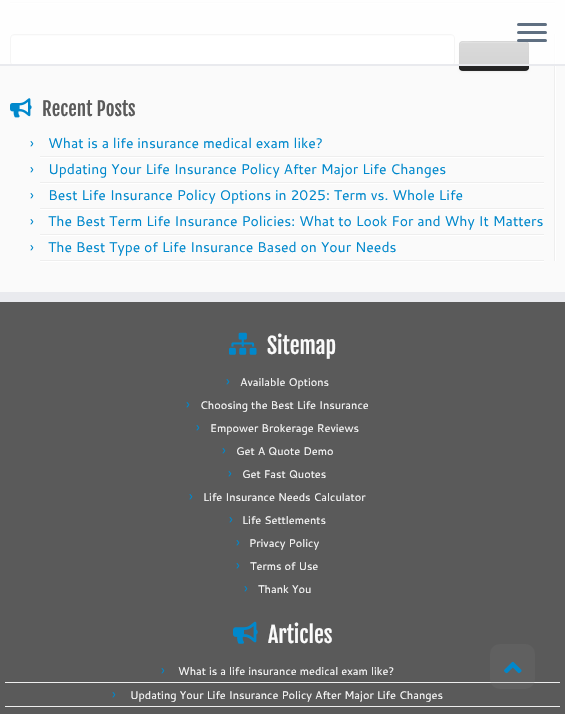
#include "include/core/SkBlurTypes.h"
#include "include/core/SkCanvas.h"
#include "include/core/SkData.h"
#include "include/core/SkFont.h"
#include "include/core/SkFontMgr.h"
#include "include/core/SkImage.h"
#include "include/core/SkMaskFilter.h"
#include "include/core/SkPaint.h"
#include "include/core/SkPathBuilder.h"
#include "include/core/SkTextBlob.h"
#include "include/effects/SkDashPathEffect.h"
#include "include/effects/SkGradientShader.h"
#include "include/utils/SkParsePath.h"

extern sk_sp<SkFontMgr> fontMgr;

void draw(SkCanvas* canvas) {
  SkPaint p;
  p.setAntiAlias(true);
  canvas->clear(SkColorSetRGB(250, 250, 250));
  p.setColor(SkColorSetRGB(238, 238, 238));
  canvas->drawRect(SkRect::MakeLTRB(10, 2, 555, 3), p);
  p.setColor(SK_ColorWHITE);
  canvas->drawRect(SkRect::MakeLTRB(10, 3, 555, 4), p);
  p.setColor(SkColorSetRGB(238, 238, 238));
  canvas->drawRect(SkRect::MakeLTRB(554, 34, 555, 261), p);
  p.setColor(SK_ColorWHITE);
  canvas->drawRoundRect(SkRect::MakeLTRB(10, 34, 455, 66), 4, 4, p);
  p.setColor(SkColorSetRGB(236, 236, 236));
  canvas->drawPath(SkPathBuilder().moveTo(14, 36).lineTo(451, 36).cubicTo(453, 36, 454, 37, 454, 39).cubicTo(454, 37, 453, 35, 451, 35).lineTo(13, 35).lineTo(11, 37).lineTo(11, 39).cubicTo(11, 37, 12, 36, 14, 36).close().detach(), p);
  p.setStyle(SkPaint::kStroke_Style);
  p.setStrokeWidth(1);
  p.setColor(SkColorSetRGB(204, 204, 204));
  canvas->drawRoundRect(SkRect::MakeLTRB(10.5f, 34.5f, 454.5f, 65.5f), 3.5f, 3.5f, p);
  p.setStyle(SkPaint::kFill_Style);
  p.setColor(SkColorSetARGB(13, 0, 0, 0));
  p.setMaskFilter(SkMaskFilter::MakeBlur(kNormal_SkBlurStyle, 1));
  canvas->drawRoundRect(SkRect::MakeLTRB(459, 42, 529, 72), 4, 4, p);
  p.setMaskFilter(nullptr);
  p.setColor(SkColorSetRGB(54, 54, 54));
  canvas->drawRoundRect(SkRect::MakeLTRB(459, 41, 529, 71), 4, 4, p);
  canvas->save();
  canvas->clipPath(SkPathBuilder().moveTo(463, 41).lineTo(525, 41).cubicTo(527, 41, 529, 43, 529, 45).lineTo(529, 67).cubicTo(529, 69, 527, 71, 525, 71).lineTo(463, 71).cubicTo(461, 71, 459, 69, 459, 67).lineTo(459, 45).cubicTo(459, 43, 461, 41, 463, 41).close().detach(), true);
  {
    const SkColor colors[] = {SkColorSetRGB(68, 68, 68), SkColorSetRGB(34, 34, 34)};
    const float stops[] = {0, 1};
    const SkPoint ends[] = {{494, 42}, {494, 70}};
    p.setShader(SkGradientShader::MakeLinear(ends, colors, stops, 2, SkTileMode::kClamp));
    p.setAlpha(255);
  }
  canvas->drawRect(SkRect::MakeLTRB(459, 42, 529, 70), p);
  canvas->restore();
  p.setShader(nullptr);
  p.setColor(SkColorSetARGB(51, 255, 255, 255));
  canvas->drawPath(SkPathBuilder().moveTo(463, 43).lineTo(525, 43).cubicTo(527, 43, 528, 44, 528, 46).cubicTo(528, 39, 519, 42, 515, 42).lineTo(473, 42).cubicTo(469, 42, 460, 39, 460, 46).cubicTo(460, 44, 461, 43, 463, 43).close().detach(), p);
  p.setStyle(SkPaint::kStroke_Style);
  p.setColor(SkColorSetARGB(64, 0, 0, 0));
  canvas->drawPath(SkPathBuilder().moveTo(527.5f, 69.5f).lineTo(525.5f, 70.5f).lineTo(462.5f, 70.5f).lineTo(460.5f, 69.5f).detach(), p);
  p.setColor(SkColorSetARGB(26, 0, 0, 0));
  canvas->drawPath(SkPathBuilder().moveTo(460.5f, 69.5f).cubicTo(458.5f, 67.5f, 459.5f, 59, 459.5f, 56).cubicTo(459.5f, 40, 457, 41.5f, 473.5f, 41.5f).lineTo(514.5f, 41.5f).cubicTo(531, 41.5f, 528.5f, 40, 528.5f, 56).cubicTo(528.5f, 59, 529.5f, 67.5f, 527.5f, 69.5f).detach(), p);
  p.setStyle(SkPaint::kFill_Style);
  p.setColor(SK_ColorWHITE);
  canvas->drawRect(SkRect::MakeLTRB(555, 34, 556, 261), p);
  p.setColor(SkColorSetARGB(204, 255, 255, 255));
  canvas->drawRect(SkRect::MakeLTRB(0, 0, 565, 64), p);
  p.setColor(SkColorSetRGB(233, 234, 238));
  canvas->drawRect(SkRect::MakeLTRB(0, 64, 565, 66), p);
  p.setColor(SkColorSetRGB(95, 111, 129));
  canvas->drawRoundRect(SkRect::MakeLTRB(517, 23, 547, 26), 1.5f, 1.5f, p);
  canvas->drawRoundRect(SkRect::MakeLTRB(517, 31, 547, 34), 1.5f, 1.5f, p);
  canvas->drawRoundRect(SkRect::MakeLTRB(517, 39, 547, 42), 1.5f, 1.5f, p);
  canvas->drawImageRect(SkImages::DeferredFromEncodedData(SkData::MakeFromFileName("images/1.png")), SkRect::MakeLTRB(10, 98, 32, 118), SkSamplingOptions());
  p.setColor(SkColorSetRGB(238, 238, 238));
  canvas->drawRect(SkRect::MakeLTRB(40, 156, 544, 157), p);
  p.setColor(SK_ColorWHITE);
  canvas->drawRect(SkRect::MakeLTRB(40, 157, 544, 158), p);
  p.setColor(SkColorSetRGB(238, 238, 238));
  canvas->drawRect(SkRect::MakeLTRB(40, 182, 544, 183), p);
  p.setColor(SK_ColorWHITE);
  canvas->drawRect(SkRect::MakeLTRB(40, 183, 544, 184), p);
  p.setColor(SkColorSetRGB(238, 238, 238));
  canvas->drawRect(SkRect::MakeLTRB(40, 208, 544, 209), p);
  p.setColor(SK_ColorWHITE);
  canvas->drawRect(SkRect::MakeLTRB(40, 209, 544, 210), p);
  p.setColor(SkColorSetRGB(238, 238, 238));
  canvas->drawRect(SkRect::MakeLTRB(40, 234, 544, 235), p);
  p.setColor(SK_ColorWHITE);
  canvas->drawRect(SkRect::MakeLTRB(40, 235, 544, 236), p);
  p.setColor(SkColorSetRGB(238, 238, 238));
  canvas->drawRect(SkRect::MakeLTRB(40, 260, 544, 261), p);
  p.setColor(SK_ColorWHITE);
  canvas->drawRect(SkRect::MakeLTRB(40, 261, 544, 262), p);
  p.setColor(SkColorSetRGB(90, 90, 90));
  canvas->drawRect(SkRect::MakeLTRB(0, 302, 565, 714), p);
  p.setColor(SkColorSetRGB(233, 234, 238));
  canvas->drawRect(SkRect::MakeLTRB(0, 292, 565, 302), p);
  canvas->drawImageRect(SkImages::DeferredFromEncodedData(SkData::MakeFromFileName("images/2.png")), SkRect::MakeLTRB(229, 332, 257, 355), SkSamplingOptions());
  canvas->drawImageRect(SkImages::DeferredFromEncodedData(SkData::MakeFromFileName("images/3.png")), SkRect::MakeLTRB(233, 621, 258, 644), SkSamplingOptions());
  p.setColor(SkColorSetRGB(238, 238, 238));
  canvas->drawRect(SkRect::MakeLTRB(5, 682, 560, 683), p);
  canvas->drawRect(SkRect::MakeLTRB(5, 706, 560, 707), p);
  p.setColor(SkColorSetARGB(51, 119, 119, 119));
  canvas->drawRoundRect(SkRect::MakeLTRB(490, 644, 535, 689), 10, 10, p);
  canvas->drawImageRect(SkImages::DeferredFromEncodedData(SkData::MakeFromFileName("images/4.png")), SkRect::MakeLTRB(504, 661, 522, 674), SkSamplingOptions());
  SkFont font1(fontMgr->matchFamilyStyle("Fjalla One", SkFontStyle::Normal()), 19);
  font1.setSubpixel(true);
  p.setColor(SkColorSetRGB(90, 90, 90));
  canvas->drawString("Recent Posts", 42, 116, font1, p);
  SkFont font2(fontMgr->matchFamilyStyle("Cantarell", SkFontStyle::Normal()), 14);
  font2.setSubpixel(true);
  p.setColor(SkColorSetRGB(0, 136, 204));
  canvas->drawString("›", 30, 148, font2, p);
  canvas->drawString("What is a life insurance medical exam like?", 48, 148, font2, p);
  canvas->drawString("›", 30, 174, font2, p);
  canvas->drawString("Updating Your Life Insurance Policy After Major Life Changes", 48, 174, font2, p);
  canvas->drawString("›", 30, 200, font2, p);
  canvas->drawString("Best Life Insurance Policy Options in 2025: Term vs. Whole Life", 48, 200, font2, p);
  canvas->drawString("›", 30, 226, font2, p);
  canvas->drawString("The Best Term Life Insurance Policies: What to Look For and Why It Matters", 48, 226, font2, p);
  canvas->drawString("›", 30, 252, font2, p);
  canvas->drawString("The Best Type of Life Insurance Based on Your Needs", 48, 252, font2, p);
  SkFont font3(fontMgr->matchFamilyStyle("Fjalla One", SkFontStyle::Normal()), 22);
  font3.setSubpixel(true);
  p.setColor(SkColorSetRGB(250, 250, 250));
  canvas->drawString("Sitemap", 267, 354, font3, p);
  p.setColor(SkColorSetRGB(0, 136, 204));
  canvas->drawString("›", 226, 386, font2, p);
  SkFont font4(fontMgr->matchFamilyStyle("Cantarell", SkFontStyle::Normal()), 11);
  font4.setSubpixel(true);
  p.setColor(SkColorSetRGB(250, 250, 250));
  canvas->drawString("Available Options", 240, 386, font4, p);
  p.setColor(SkColorSetRGB(0, 136, 204));
  canvas->drawString("›", 186, 409, font2, p);
  p.setColor(SkColorSetRGB(250, 250, 250));
  canvas->drawString("Choosing the Best Life Insurance", 200, 409, font4, p);
  p.setColor(SkColorSetRGB(0, 136, 204));
  canvas->drawString("›", 196, 432, font2, p);
  p.setColor(SkColorSetRGB(250, 250, 250));
  canvas->drawString("Empower Brokerage Reviews", 210, 432, font4, p);
  p.setColor(SkColorSetRGB(0, 136, 204));
  canvas->drawString("›", 222, 455, font2, p);
  p.setColor(SkColorSetRGB(250, 250, 250));
  canvas->drawString("Get A Quote Demo", 236, 455, font4, p);
  p.setColor(SkColorSetRGB(0, 136, 204));
  canvas->drawString("›", 228, 478, font2, p);
  p.setColor(SkColorSetRGB(250, 250, 250));
  canvas->drawString("Get Fast Quotes", 242, 478, font4, p);
  p.setColor(SkColorSetRGB(0, 136, 204));
  canvas->drawString("›", 189, 501, font2, p);
  p.setColor(SkColorSetRGB(250, 250, 250));
  canvas->drawString("Life Insurance Needs Calculator", 203, 501, font4, p);
  p.setColor(SkColorSetRGB(0, 136, 204));
  canvas->drawString("›", 229, 524, font2, p);
  p.setColor(SkColorSetRGB(250, 250, 250));
  canvas->drawString("Life Settlements", 242, 524, font4, p);
  p.setColor(SkColorSetRGB(0, 136, 204));
  canvas->drawString("›", 236, 547, font2, p);
  p.setColor(SkColorSetRGB(250, 250, 250));
  canvas->drawString("Privacy Policy", 249, 547, font4, p);
  p.setColor(SkColorSetRGB(0, 136, 204));
  canvas->drawString("›", 236, 570, font2, p);
  p.setColor(SkColorSetRGB(250, 250, 250));
  canvas->drawString("Terms of Use", 250, 570, font4, p);
  p.setColor(SkColorSetRGB(0, 136, 204));
  canvas->drawString("›", 244, 593, font2, p);
  p.setColor(SkColorSetRGB(250, 250, 250));
  canvas->drawString("Thank You", 258, 593, font4, p);
  canvas->drawString("Articles", 268, 643, font3, p);
  p.setColor(SkColorSetRGB(0, 136, 204));
  canvas->drawString("›", 161, 675, font2, p);
  p.setColor(SkColorSetRGB(250, 250, 250));
  canvas->drawString("What is a life insurance medical exam like?", 178, 675, font4, p);
  p.setColor(SkColorSetRGB(0, 136, 204));
  canvas->drawString("›", 112, 699, font2, p);
  p.setColor(SkColorSetRGB(250, 250, 250));
  canvas->drawString("Updating Your Life Insurance Policy After Major Life Changes", 130, 699, font4, p);
}
